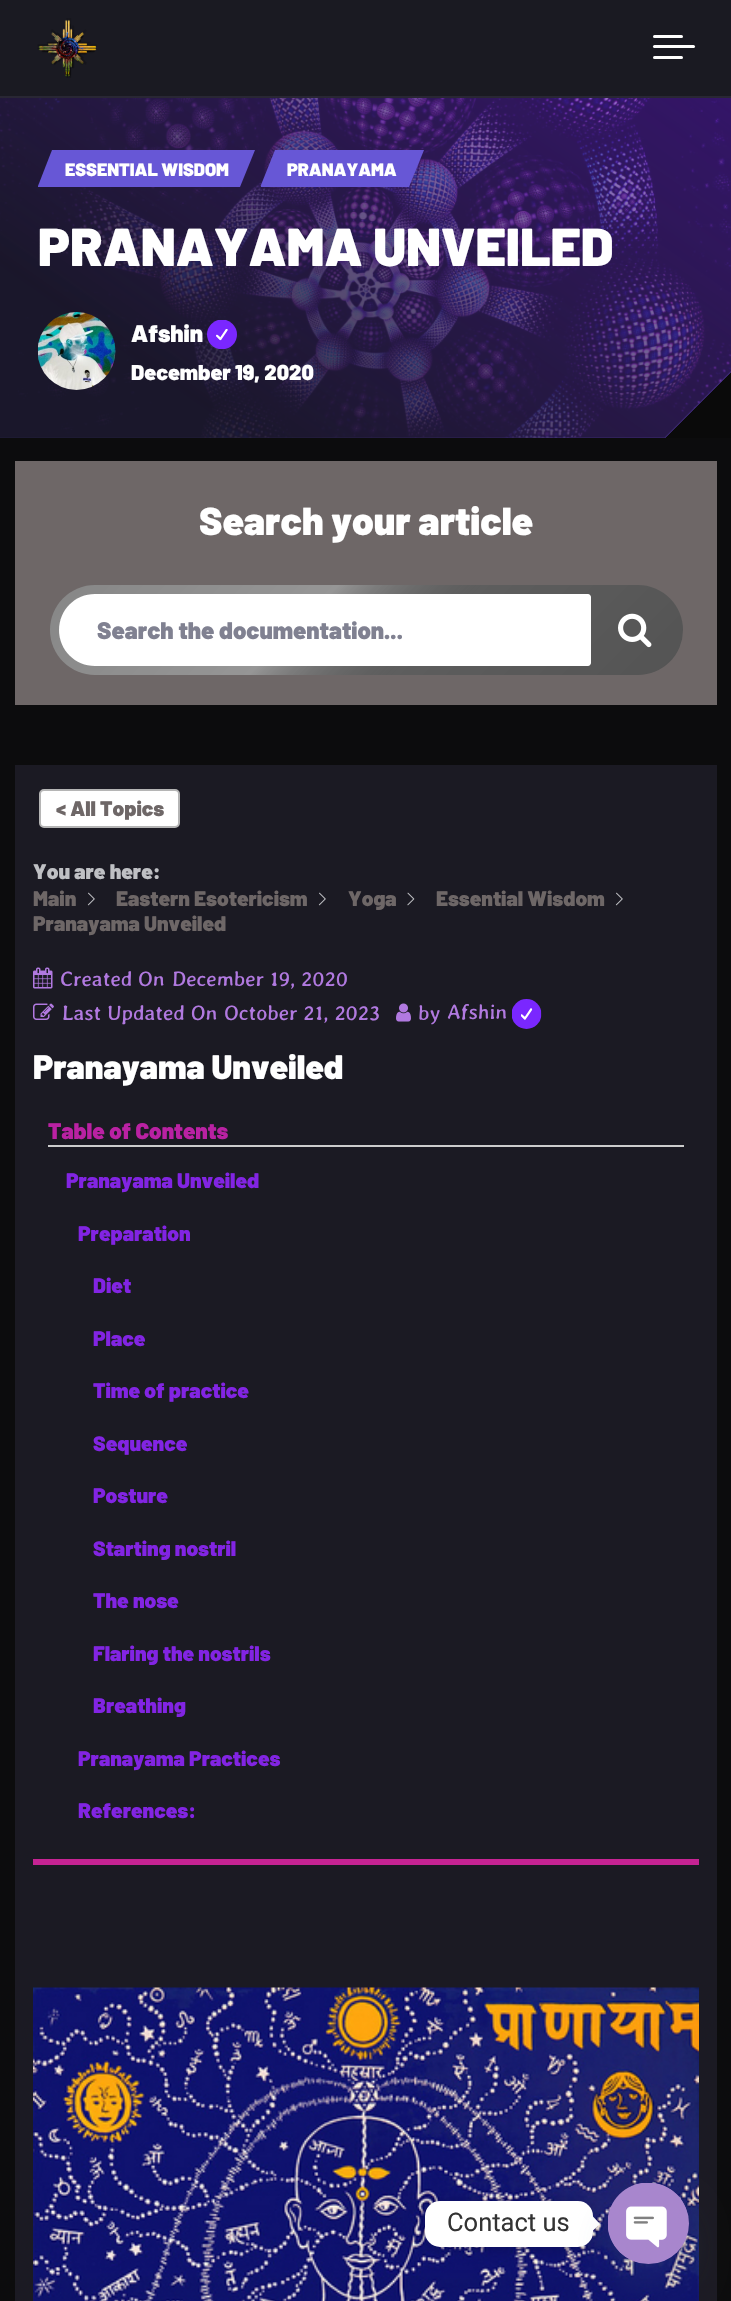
#include "include/core/SkBlurTypes.h"
#include "include/core/SkCanvas.h"
#include "include/core/SkData.h"
#include "include/core/SkFont.h"
#include "include/core/SkFontMgr.h"
#include "include/core/SkImage.h"
#include "include/core/SkMaskFilter.h"
#include "include/core/SkPaint.h"
#include "include/core/SkPathBuilder.h"
#include "include/core/SkTextBlob.h"
#include "include/effects/SkDashPathEffect.h"
#include "include/effects/SkGradientShader.h"
#include "include/utils/SkParsePath.h"

extern sk_sp<SkFontMgr> fontMgr;

void draw(SkCanvas* canvas) {
  SkPaint p;
  p.setAntiAlias(true);
  canvas->clear(SkColorSetRGB(10, 10, 10));
  p.setColor(SkColorSetRGB(26, 26, 34));
  canvas->drawRect(SkRect::MakeLTRB(0, 0, 731, 96), p);
  p.setColor(SkColorSetRGB(41, 39, 52));
  canvas->drawRect(SkRect::MakeLTRB(0, 96, 731, 98), p);
  canvas->drawImageRect(SkImages::DeferredFromEncodedData(SkData::MakeFromFileName("images/1.png")), SkRect::MakeLTRB(37, 18, 97, 78), SkSamplingOptions());
  p.setColor(SK_ColorWHITE);
  canvas->drawRoundRect(SkRect::MakeLTRB(653, 45, 695, 48), 1.5f, 1.5f, p);
  canvas->drawRoundRect(SkRect::MakeLTRB(653, 35, 683, 38), 1.5f, 1.5f, p);
  canvas->drawRoundRect(SkRect::MakeLTRB(653, 56, 683, 59), 1.5f, 1.5f, p);
  p.setColor(SkColorSetRGB(103, 87, 214));
  canvas->drawPath(SkPathBuilder().moveTo(0, 98).lineTo(0, 438).lineTo(665, 438).lineTo(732, 371).lineTo(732, 98).close().detach(), p);
  canvas->drawImageRect(SkImages::DeferredFromEncodedData(SkData::MakeFromFileName("images/2.png")), SkRect::MakeLTRB(0, 98, 731, 438), SkSamplingOptions());
  p.setColor(SkColorSetARGB(115, 122, 39, 255));
  canvas->drawPath(SkPathBuilder().moveTo(0, 98).lineTo(0, 438).lineTo(665, 438).lineTo(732, 371).lineTo(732, 98).close().detach(), p);
  {
    const SkColor colors[] = {SkColorSetARGB(217, 20, 23, 29), SkColorSetARGB(38, 30, 33, 39)};
    const float stops[] = {0.2f, 1};
    const SkPoint ends[] = {{166, 554}, {566, -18}};
    p.setShader(SkGradientShader::MakeLinear(ends, colors, stops, 2, SkTileMode::kClamp));
    p.setAlpha(255);
  }
  canvas->drawPath(SkPathBuilder().moveTo(0, 98).lineTo(0, 438).lineTo(665, 438).lineTo(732, 371).lineTo(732, 98).close().detach(), p);
  p.setShader(nullptr);
  p.setColor(SkColorSetRGB(103, 87, 214));
  canvas->drawPath(SkPathBuilder().moveTo(38, 186).lineTo(52, 150).lineTo(255, 150).lineTo(240, 187).lineTo(38, 187).close().detach(), p);
  canvas->drawPath(SkPathBuilder().moveTo(261, 185).lineTo(275, 150).lineTo(424, 150).lineTo(409, 187).lineTo(261, 187).close().detach(), p);
  canvas->drawImageRect(SkImages::DeferredFromEncodedData(SkData::MakeFromFileName("images/3.png")), SkRect::MakeLTRB(38, 312, 116, 390), SkSamplingOptions());
  canvas->drawImageRect(SkImages::DeferredFromEncodedData(SkData::MakeFromFileName("images/4.png")), SkRect::MakeLTRB(207, 320, 237, 350), SkSamplingOptions());
  p.setColor(SkColorSetRGB(12, 12, 13));
  canvas->drawRect(SkRect::MakeLTRB(0, 438, 731, 2301), p);
  p.setColor(SkColorSetRGB(110, 103, 103));
  canvas->drawRect(SkRect::MakeLTRB(15, 461, 717, 705), p);
  p.setColor(SkColorSetRGB(104, 104, 104));
  canvas->drawRoundRect(SkRect::MakeLTRB(50, 585, 683, 675), 45, 45, p);
  {
    const SkColor colors[] = {SkColorSetARGB(51, 255, 255, 255), SkColorSetARGB(77, 255, 255, 255), SkColorSetARGB(26, 0, 0, 0), SkColorSetARGB(51, 0, 0, 0)};
    const float stops[] = {0, 0.4f, 0.6f, 1};
    const SkPoint ends[] = {{185, 449}, {547, 811}};
    p.setShader(SkGradientShader::MakeLinear(ends, colors, stops, 4, SkTileMode::kClamp));
    p.setAlpha(255);
  }
  canvas->drawRoundRect(SkRect::MakeLTRB(50, 585, 683, 675), 45, 45, p);
  p.setShader(nullptr);
  p.setColor(SK_ColorWHITE);
  canvas->drawPath(SkPathBuilder().moveTo(95, 594).lineTo(588, 594).cubicTo(589.5f, 594, 591, 595.5f, 591, 597).lineTo(591, 663).cubicTo(591, 664.5f, 589.5f, 666, 588, 666).lineTo(95, 666).cubicTo(75, 666, 59, 650, 59, 630).cubicTo(59, 610, 75, 594, 95, 594).close().detach(), p);
  canvas->drawImageRect(SkImages::DeferredFromEncodedData(SkData::MakeFromFileName("images/5.png")), SkRect::MakeLTRB(618, 613, 652, 648), SkSamplingOptions());
  p.setColor(SkColorSetRGB(27, 26, 35));
  canvas->drawRect(SkRect::MakeLTRB(15, 765, 717, 2301), p);
  p.setColor(SK_ColorWHITE);
  canvas->drawRoundRect(SkRect::MakeLTRB(40, 790, 179, 827), 4, 4, p);
  p.setStyle(SkPaint::kStroke_Style);
  p.setStrokeWidth(2);
  p.setColor(SkColorSetRGB(181, 181, 181));
  canvas->drawRoundRect(SkRect::MakeLTRB(40, 790, 179, 827), 4, 4, p);
  canvas->drawImageRect(SkImages::DeferredFromEncodedData(SkData::MakeFromFileName("images/6.png")), SkRect::MakeLTRB(87, 892, 95, 906), SkSamplingOptions());
  canvas->drawImageRect(SkImages::DeferredFromEncodedData(SkData::MakeFromFileName("images/6.png")), SkRect::MakeLTRB(318, 892, 326, 906), SkSamplingOptions());
  canvas->drawImageRect(SkImages::DeferredFromEncodedData(SkData::MakeFromFileName("images/7.png")), SkRect::MakeLTRB(407, 892, 415, 906), SkSamplingOptions());
  canvas->drawImageRect(SkImages::DeferredFromEncodedData(SkData::MakeFromFileName("images/6.png")), SkRect::MakeLTRB(615, 892, 623, 906), SkSamplingOptions());
  canvas->drawImageRect(SkImages::DeferredFromEncodedData(SkData::MakeFromFileName("images/8.png")), SkRect::MakeLTRB(33, 967, 53, 989), SkSamplingOptions());
  canvas->drawImageRect(SkImages::DeferredFromEncodedData(SkData::MakeFromFileName("images/9.png")), SkRect::MakeLTRB(33, 1003, 54, 1020), SkSamplingOptions());
  canvas->drawImageRect(SkImages::DeferredFromEncodedData(SkData::MakeFromFileName("images/10.png")), SkRect::MakeLTRB(396, 1003, 411, 1022), SkSamplingOptions());
  canvas->drawImageRect(SkImages::DeferredFromEncodedData(SkData::MakeFromFileName("images/11.png")), SkRect::MakeLTRB(512, 999, 542, 1029), SkSamplingOptions());
  p.setStyle(SkPaint::kFill_Style);
  p.setColor(SkColorSetRGB(198, 35, 147));
  canvas->drawRect(SkRect::MakeLTRB(33, 1859, 699, 1865), p);
  p.setColor(SkColorSetRGB(204, 204, 204));
  canvas->drawRect(SkRect::MakeLTRB(48, 1145, 684, 1147), p);
  canvas->drawImageRect(SkImages::DeferredFromEncodedData(SkData::MakeFromFileName("images/12.png")), SkRect::MakeLTRB(33, 1987, 699, 2301), SkSamplingOptions());
  p.setColor(SkColorSetARGB(38, 0, 0, 0));
  p.setMaskFilter(SkMaskFilter::MakeBlur(kNormal_SkBlurStyle, 6));
  canvas->drawRoundRect(SkRect::MakeLTRB(425, 2202, 593, 2249), 15, 15, p);
  p.setMaskFilter(nullptr);
  p.setColor(SK_ColorWHITE);
  canvas->drawRoundRect(SkRect::MakeLTRB(425, 2201, 593, 2247), 15, 15, p);
  canvas->drawPath(SkPathBuilder().moveTo(592.5f, 2231).lineTo(592.5f, 2216).lineTo(600, 2224).close().detach(), p);
  p.setColor(SkColorSetARGB(41, 73, 104, 126));
  p.setMaskFilter(SkMaskFilter::MakeBlur(kNormal_SkBlurStyle, 18));
  canvas->drawRoundRect(SkRect::MakeLTRB(608, 2207, 689, 2288), 40.5f, 40.5f, p);
  p.setMaskFilter(nullptr);
  p.setColor(SkColorSetRGB(168, 134, 205));
  canvas->drawCircle(648.5f, 2223.5f, 40.5f, p);
  canvas->drawImageRect(SkImages::DeferredFromEncodedData(SkData::MakeFromFileName("images/13.png")), SkRect::MakeLTRB(608, 2183, 688, 2263), SkSamplingOptions());
  SkFont font1(fontMgr->matchFamilyStyle("Barlow", SkFontStyle(900, SkFontStyle::kNormal_Width, SkFontStyle::kUpright_Slant)), 18);
  font1.setSubpixel(true);
  p.setColor(SK_ColorWHITE);
  canvas->drawString("ESSENTIAL WISDOM", 65, 176, font1, p);
  canvas->drawString("PRANAYAMA", 287, 176, font1, p);
  SkFont font2(fontMgr->matchFamilyStyle("Barlow", SkFontStyle(900, SkFontStyle::kNormal_Width, SkFontStyle::kUpright_Slant)), 53.25f);
  font2.setSubpixel(true);
  canvas->drawString("PRANAYAMA UNVEILED", 38, 266, font2, p);
  SkFont font3(fontMgr->matchFamilyStyle("Barlow", SkFontStyle(900, SkFontStyle::kNormal_Width, SkFontStyle::kUpright_Slant)), 24);
  font3.setSubpixel(true);
  canvas->drawString("Afshin", 131, 342, font3, p);
  SkFont font4(fontMgr->matchFamilyStyle("Barlow", SkFontStyle(900, SkFontStyle::kNormal_Width, SkFontStyle::kUpright_Slant)), 21.5f);
  font4.setSubpixel(true);
  canvas->drawString("December 19, 2020", 131, 380, font4, p);
  SkFont font5(fontMgr->matchFamilyStyle("Barlow", SkFontStyle(900, SkFontStyle::kNormal_Width, SkFontStyle::kUpright_Slant)), 39);
  font5.setSubpixel(true);
  canvas->drawString("Search your article", 199, 535, font5, p);
  p.setColor(SkColorSetRGB(128, 129, 145));
  canvas->drawString("Search the documentation...", 97, 639, font3, p);
  SkFont font6(fontMgr->matchFamilyStyle("Barlow", SkFontStyle(900, SkFontStyle::kNormal_Width, SkFontStyle::kUpright_Slant)), 21);
  font6.setSubpixel(true);
  p.setColor(SkColorSetRGB(110, 103, 103));
  canvas->drawString("< All Topics", 56, 816, font6, p);
  p.setColor(SkColorSetRGB(191, 192, 196));
  canvas->drawString("You are here:", 33, 879, font6, p);
  p.setColor(SkColorSetRGB(110, 103, 103));
  canvas->drawString("Main", 33, 906, font6, p);
  canvas->drawString("Eastern Esotericism", 116, 906, font6, p);
  canvas->drawString("Yoga", 348, 906, font6, p);
  canvas->drawString("Essential Wisdom", 436, 906, font6, p);
  canvas->drawString("Pranayama Unveiled", 33, 931, font6, p);
  SkFont font7(fontMgr->matchFamilyStyle("Averia Gruesa Libre", SkFontStyle::Normal()), 21);
  font7.setSubpixel(true);
  p.setColor(SkColorSetRGB(177, 121, 224));
  canvas->drawString("Created On", 60, 986, font7, p);
  canvas->drawString("December 19, 2020", 172, 986, font7, p);
  canvas->drawString("Last Updated On", 62, 1020, font7, p);
  canvas->drawString("October 21, 2023", 224, 1020, font7, p);
  canvas->drawString("by", 418, 1020, font7, p);
  canvas->drawString("Afshin", 447, 1019, font7, p);
  SkFont font8(fontMgr->matchFamilyStyle("Barlow", SkFontStyle(900, SkFontStyle::kNormal_Width, SkFontStyle::kUpright_Slant)), 33.75f);
  font8.setSubpixel(true);
  p.setColor(SK_ColorWHITE);
  canvas->drawString("Pranayama Unveiled", 33, 1079, font8, p);
  SkFont font9(fontMgr->matchFamilyStyle("Barlow", SkFontStyle(900, SkFontStyle::kNormal_Width, SkFontStyle::kUpright_Slant)), 22.5f);
  font9.setSubpixel(true);
  p.setColor(SkColorSetRGB(186, 33, 163));
  canvas->drawString("Table of Contents", 48, 1139, font9, p);
  p.setColor(SkColorSetRGB(130, 36, 227));
  canvas->drawString("Pranayama Unveiled", 66, 1188, font6, p);
  canvas->drawString("Preparation", 78, 1241, font6, p);
  canvas->drawString("Diet", 93, 1293, font6, p);
  canvas->drawString("Place", 93, 1346, font6, p);
  canvas->drawString("Time of practice", 93, 1398, font6, p);
  canvas->drawString("Sequence", 93, 1451, font6, p);
  canvas->drawString("Posture", 93, 1503, font6, p);
  canvas->drawString("Starting nostril", 93, 1556, font6, p);
  canvas->drawString("The nose", 93, 1608, font6, p);
  canvas->drawString("Flaring the nostrils", 93, 1661, font6, p);
  canvas->drawString("Breathing", 93, 1713, font6, p);
  canvas->drawString("Pranayama Practices", 78, 1766, font6, p);
  canvas->drawString("References:", 78, 1818, font6, p);
  SkFont font10(fontMgr->matchFamilyStyle("Roboto", SkFontStyle::Normal()), 25.5f);
  font10.setSubpixel(true);
  p.setColor(SkColorSetRGB(51, 51, 51));
  canvas->drawString("Contact us", 447, 2231, font10, p);
}
